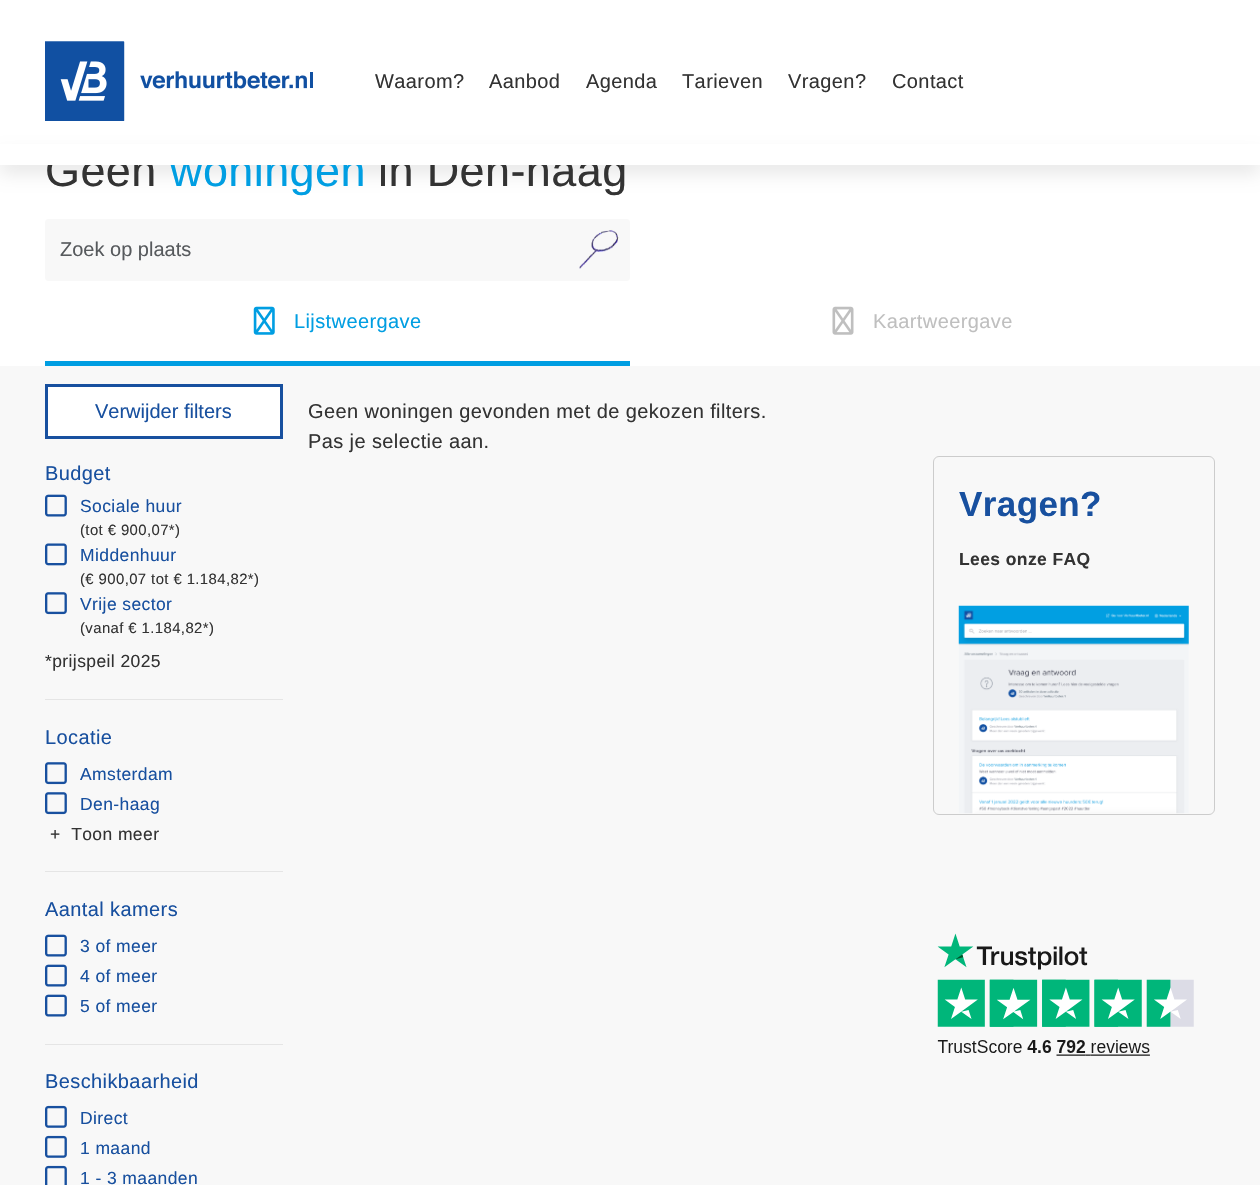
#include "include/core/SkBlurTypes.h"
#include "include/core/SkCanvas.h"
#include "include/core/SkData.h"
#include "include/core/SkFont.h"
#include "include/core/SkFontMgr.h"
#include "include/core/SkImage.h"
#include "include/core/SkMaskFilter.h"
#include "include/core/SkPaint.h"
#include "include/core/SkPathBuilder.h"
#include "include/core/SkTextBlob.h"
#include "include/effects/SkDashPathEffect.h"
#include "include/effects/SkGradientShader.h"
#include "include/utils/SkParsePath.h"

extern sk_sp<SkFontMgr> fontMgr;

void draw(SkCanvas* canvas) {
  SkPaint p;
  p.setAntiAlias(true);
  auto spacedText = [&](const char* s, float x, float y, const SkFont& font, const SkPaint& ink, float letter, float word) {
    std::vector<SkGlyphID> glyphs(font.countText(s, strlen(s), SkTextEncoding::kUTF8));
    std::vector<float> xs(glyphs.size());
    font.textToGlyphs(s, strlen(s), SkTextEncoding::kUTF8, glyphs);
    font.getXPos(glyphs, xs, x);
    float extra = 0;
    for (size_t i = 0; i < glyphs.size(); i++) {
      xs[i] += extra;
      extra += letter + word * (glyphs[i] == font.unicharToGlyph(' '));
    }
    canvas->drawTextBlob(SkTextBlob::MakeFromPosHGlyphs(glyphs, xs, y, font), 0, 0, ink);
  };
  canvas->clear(SK_ColorWHITE);
  canvas->drawImageRect(SkImages::DeferredFromEncodedData(SkData::MakeFromFileName("images/1.png")), SkRect::MakeLTRB(45, 41, 313, 121), SkSamplingOptions());
  p.setColor(SkColorSetARGB(38, 0, 0, 0));
  p.setMaskFilter(SkMaskFilter::MakeBlur(kNormal_SkBlurStyle, 9.5f));
  canvas->drawRect(SkRect::MakeLTRB(0, 158, 1260, 170), p);
  p.setMaskFilter(nullptr);
  p.setColor(SkColorSetRGB(248, 248, 248));
  canvas->drawRoundRect(SkRect::MakeLTRB(45, 219, 630, 281), 4, 4, p);
  canvas->drawImageRect(SkImages::DeferredFromEncodedData(SkData::MakeFromFileName("images/2.png")), SkRect::MakeLTRB(579, 229, 619, 269), SkSamplingOptions());
  p.setColor(SkColorSetRGB(0, 158, 226));
  canvas->drawRect(SkRect::MakeLTRB(45, 361, 630, 366), p);
  canvas->drawImageRect(SkImages::DeferredFromEncodedData(SkData::MakeFromFileName("images/3.png")), SkRect::MakeLTRB(253, 306, 275, 335), SkSamplingOptions());
  canvas->drawImageRect(SkImages::DeferredFromEncodedData(SkData::MakeFromFileName("images/4.png")), SkRect::MakeLTRB(832, 306, 854, 335), SkSamplingOptions());
  p.setColor(SkColorSetRGB(248, 248, 248));
  canvas->drawRect(SkRect::MakeLTRB(0, 366, 1260, 1185), p);
  p.setColor(SK_ColorWHITE);
  canvas->drawRect(SkRect::MakeLTRB(46.5f, 385.5f, 281.5f, 437.5f), p);
  p.setStyle(SkPaint::kStroke_Style);
  p.setStrokeWidth(3);
  p.setColor(SkColorSetRGB(24, 80, 159));
  canvas->drawRect(SkRect::MakeLTRB(46.5f, 385.5f, 281.5f, 437.5f), p);
  canvas->drawImageRect(SkImages::DeferredFromEncodedData(SkData::MakeFromFileName("images/5.png")), SkRect::MakeLTRB(45, 494, 67, 517), SkSamplingOptions());
  canvas->drawImageRect(SkImages::DeferredFromEncodedData(SkData::MakeFromFileName("images/6.png")), SkRect::MakeLTRB(45, 543, 67, 566), SkSamplingOptions());
  canvas->drawImageRect(SkImages::DeferredFromEncodedData(SkData::MakeFromFileName("images/7.png")), SkRect::MakeLTRB(45, 592, 67, 615), SkSamplingOptions());
  p.setStyle(SkPaint::kFill_Style);
  p.setColor(SkColorSetRGB(229, 229, 229));
  canvas->drawRect(SkRect::MakeLTRB(45, 699, 283, 700), p);
  canvas->drawImageRect(SkImages::DeferredFromEncodedData(SkData::MakeFromFileName("images/7.png")), SkRect::MakeLTRB(45, 762, 67, 785), SkSamplingOptions());
  canvas->drawImageRect(SkImages::DeferredFromEncodedData(SkData::MakeFromFileName("images/7.png")), SkRect::MakeLTRB(45, 792, 67, 815), SkSamplingOptions());
  canvas->drawRect(SkRect::MakeLTRB(45, 871, 283, 872), p);
  canvas->drawImageRect(SkImages::DeferredFromEncodedData(SkData::MakeFromFileName("images/5.png")), SkRect::MakeLTRB(45, 934, 67, 957), SkSamplingOptions());
  canvas->drawImageRect(SkImages::DeferredFromEncodedData(SkData::MakeFromFileName("images/5.png")), SkRect::MakeLTRB(45, 964, 67, 987), SkSamplingOptions());
  canvas->drawImageRect(SkImages::DeferredFromEncodedData(SkData::MakeFromFileName("images/5.png")), SkRect::MakeLTRB(45, 994, 67, 1017), SkSamplingOptions());
  canvas->drawRect(SkRect::MakeLTRB(45, 1044, 283, 1045), p);
  canvas->drawImageRect(SkImages::DeferredFromEncodedData(SkData::MakeFromFileName("images/8.png")), SkRect::MakeLTRB(45, 1105, 67, 1128), SkSamplingOptions());
  canvas->drawImageRect(SkImages::DeferredFromEncodedData(SkData::MakeFromFileName("images/8.png")), SkRect::MakeLTRB(45, 1135, 67, 1158), SkSamplingOptions());
  canvas->drawImageRect(SkImages::DeferredFromEncodedData(SkData::MakeFromFileName("images/9.png")), SkRect::MakeLTRB(45, 1165, 67, 1185), SkSamplingOptions());
  p.setStyle(SkPaint::kStroke_Style);
  p.setStrokeWidth(1);
  p.setColor(SkColorSetRGB(204, 204, 204));
  canvas->drawRoundRect(SkRect::MakeLTRB(933.5f, 456.5f, 1214.5f, 814.5f), 5.5f, 5.5f, p);
  canvas->drawImageRect(SkImages::DeferredFromEncodedData(SkData::MakeFromFileName("images/10.png")), SkRect::MakeLTRB(958, 605, 1189, 814), SkSamplingOptions());
  canvas->drawImageRect(SkImages::DeferredFromEncodedData(SkData::MakeFromFileName("images/11.png")), SkRect::MakeLTRB(937, 933, 1194, 1056), SkSamplingOptions());
  SkFont font1(fontMgr->matchFamilyStyle("Liberation Sans", SkFontStyle::Normal()), 20);
  font1.setSubpixel(true);
  p.setStyle(SkPaint::kFill_Style);
  p.setColor(SkColorSetRGB(51, 51, 51));
  spacedText("Waarom?", 375, 88, font1, p, 0.4f, 0);
  spacedText("Aanbod", 489, 88, font1, p, 0.4f, 0);
  spacedText("Agenda", 586, 88, font1, p, 0.4f, 0);
  spacedText("Tarieven", 682, 88, font1, p, 0.4f, 0);
  spacedText("Vragen?", 788, 88, font1, p, 0.4f, 0);
  spacedText("Contact", 892, 88, font1, p, 0.4f, 0);
  SkFont font2(fontMgr->matchFamilyStyle("Liberation Sans", SkFontStyle::Normal()), 45);
  font2.setSubpixel(true);
  spacedText("Geen", 45, 186, font2, p, 0.4f, 0);
  p.setColor(SkColorSetRGB(0, 158, 226));
  spacedText("woningen", 170, 186, font2, p, 0.4f, 0);
  p.setColor(SkColorSetRGB(51, 51, 51));
  spacedText("in Den-haag", 378, 186, font2, p, 0.4f, 0);
  p.setColor(SK_ColorWHITE);
  canvas->drawRect(SkRect::MakeLTRB(0, 144, 1260, 165), p);
  p.setColor(SkColorSetRGB(87, 90, 93));
  canvas->drawString("Zoek op plaats", 60, 256, font1, p);
  p.setColor(SkColorSetRGB(0, 158, 226));
  spacedText("Lijstweergave", 294, 328, font1, p, 0.4f, 0);
  p.setColor(SkColorSetRGB(191, 191, 191));
  spacedText("Kaartweergave", 873, 328, font1, p, 0.4f, 0);
  p.setColor(SkColorSetRGB(24, 80, 159));
  canvas->drawString("Verwijder filters", 95, 418, font1, p);
  spacedText("Budget", 45, 480, font1, p, 0.4f, 0);
  SkFont font3(fontMgr->matchFamilyStyle("Liberation Sans", SkFontStyle::Normal()), 17.5f);
  font3.setSubpixel(true);
  spacedText("Sociale huur", 80, 512, font3, p, 0.4f, 0);
  SkFont font4(fontMgr->matchFamilyStyle("Liberation Sans", SkFontStyle::Normal()), 14.9f);
  font4.setSubpixel(true);
  p.setColor(SkColorSetRGB(51, 51, 51));
  spacedText("(tot € 900,07*)", 80, 535, font4, p, 0.4f, 0);
  p.setColor(SkColorSetRGB(24, 80, 159));
  spacedText("Middenhuur", 80, 561, font3, p, 0.4f, 0);
  p.setColor(SkColorSetRGB(51, 51, 51));
  spacedText("(€ 900,07 tot € 1.184,82*)", 80, 584, font4, p, 0.4f, 0);
  p.setColor(SkColorSetRGB(24, 80, 159));
  spacedText("Vrije sector", 80, 610, font3, p, 0.4f, 0);
  p.setColor(SkColorSetRGB(51, 51, 51));
  spacedText("(vanaf € 1.184,82*)", 80, 633, font4, p, 0.4f, 0);
  spacedText("*prijspeil 2025", 45, 667, font3, p, 0.4f, 0);
  p.setColor(SkColorSetRGB(24, 80, 159));
  spacedText("Locatie", 45, 744, font1, p, 0.4f, 0);
  spacedText("Amsterdam", 80, 780, font3, p, 0.4f, 0);
  spacedText("Den-haag", 80, 810, font3, p, 0.4f, 0);
  p.setColor(SkColorSetRGB(51, 51, 51));
  spacedText("+  Toon meer", 50, 840, font3, p, 0.4f, 0);
  p.setColor(SkColorSetRGB(24, 80, 159));
  spacedText("Aantal kamers", 45, 916, font1, p, 0.4f, 0);
  spacedText("3 of meer", 80, 952, font3, p, 0.4f, 0);
  spacedText("4 of meer", 80, 982, font3, p, 0.4f, 0);
  spacedText("5 of meer", 80, 1012, font3, p, 0.4f, 0);
  spacedText("Beschikbaarheid", 45, 1088, font1, p, 0.4f, 0);
  spacedText("Direct", 80, 1124, font3, p, 0.4f, 0);
  spacedText("1 maand", 80, 1154, font3, p, 0.4f, 0);
  spacedText("1 - 3 maanden", 80, 1184, font3, p, 0.4f, 0);
  p.setColor(SkColorSetRGB(51, 51, 51));
  spacedText("Geen woningen gevonden met de gekozen filters.", 308, 418, font1, p, 0.4f, 0);
  spacedText("Pas je selectie aan.", 308, 448, font1, p, 0.4f, 0);
  SkFont font5(fontMgr->matchFamilyStyle("Liberation Sans", SkFontStyle::Bold()), 35);
  font5.setSubpixel(true);
  p.setColor(SkColorSetRGB(24, 80, 159));
  spacedText("Vragen?", 959, 516, font5, p, 0.4f, 0);
  SkFont font6(fontMgr->matchFamilyStyle("Liberation Sans", SkFontStyle::Bold()), 17.5f);
  font6.setSubpixel(true);
  p.setColor(SkColorSetRGB(51, 51, 51));
  spacedText("Lees onze FAQ", 959, 565, font6, p, 0.4f, 0);
}
